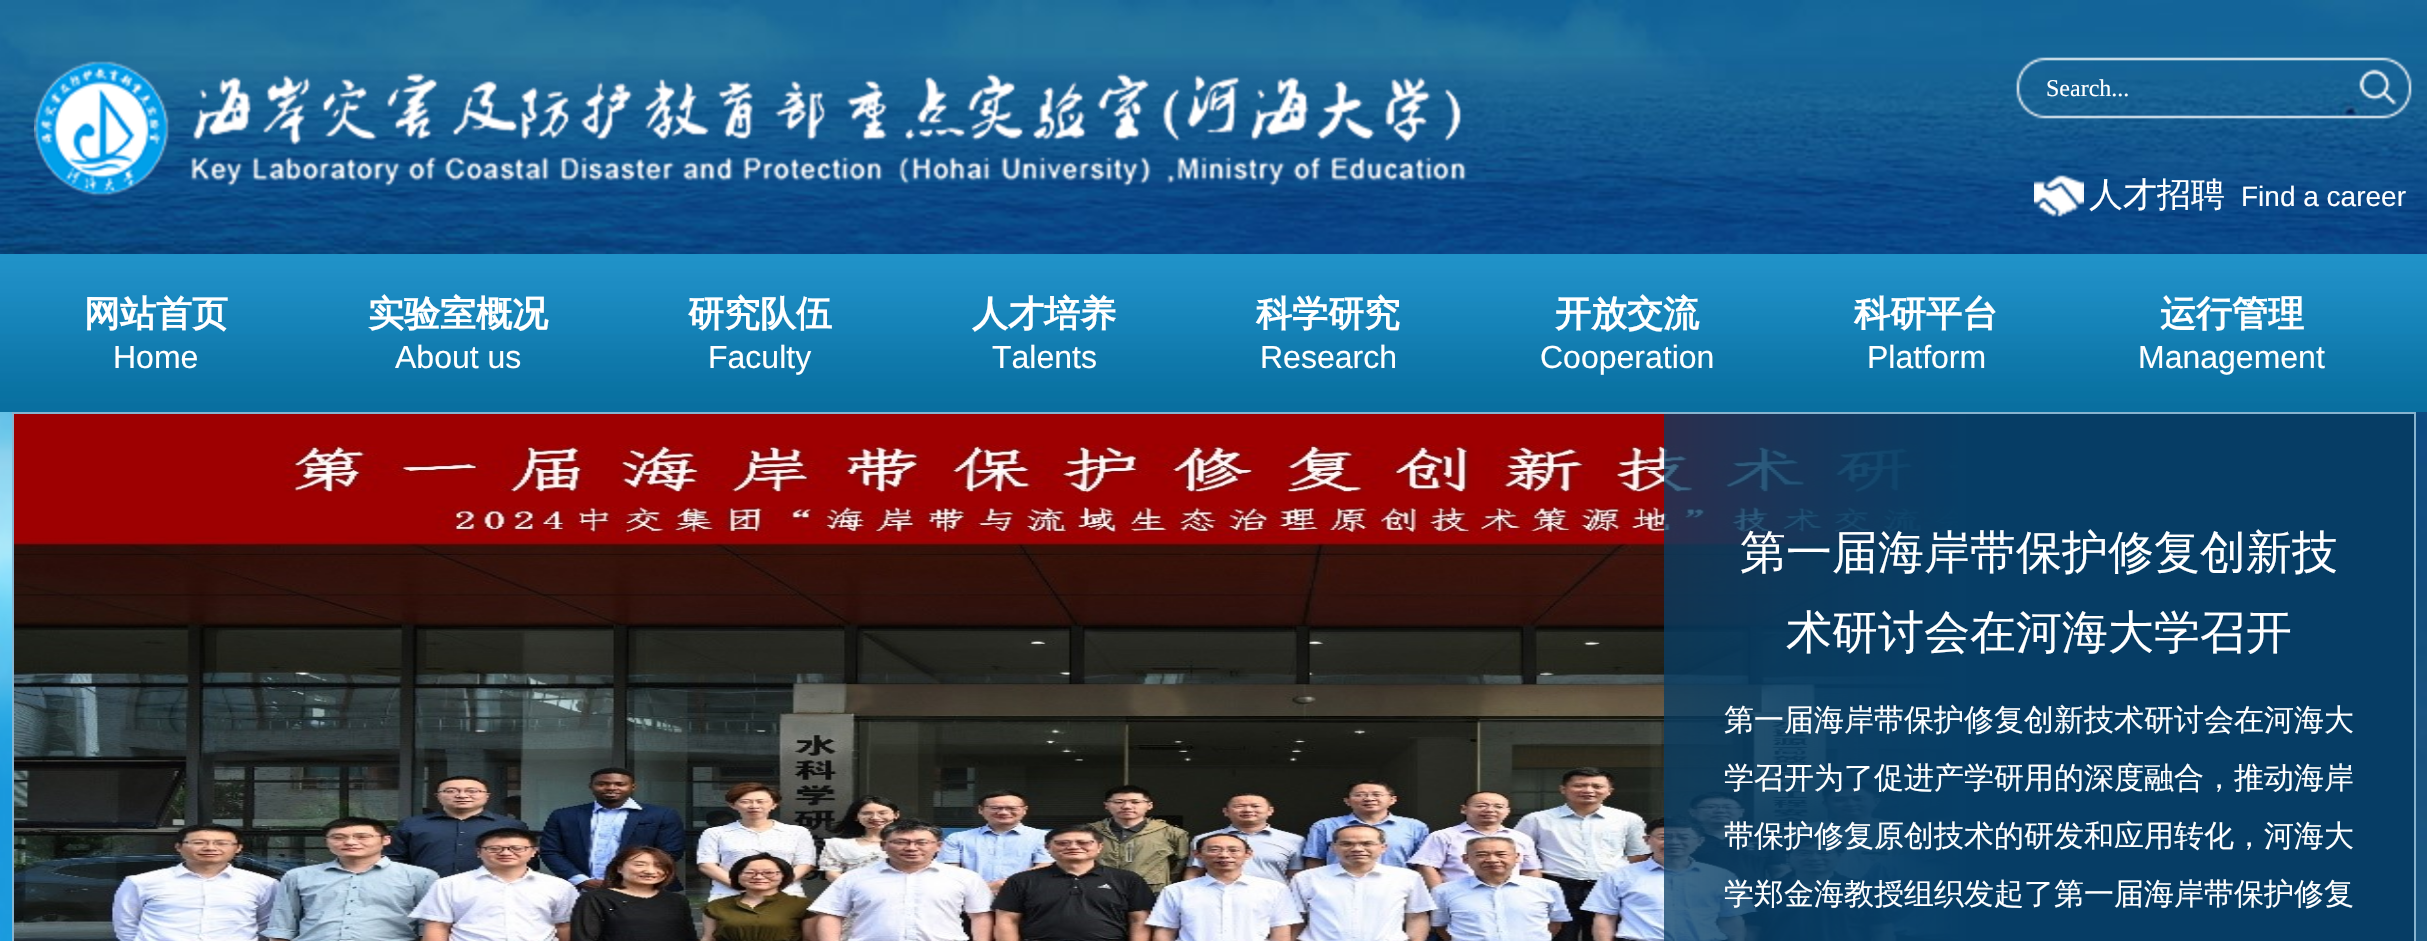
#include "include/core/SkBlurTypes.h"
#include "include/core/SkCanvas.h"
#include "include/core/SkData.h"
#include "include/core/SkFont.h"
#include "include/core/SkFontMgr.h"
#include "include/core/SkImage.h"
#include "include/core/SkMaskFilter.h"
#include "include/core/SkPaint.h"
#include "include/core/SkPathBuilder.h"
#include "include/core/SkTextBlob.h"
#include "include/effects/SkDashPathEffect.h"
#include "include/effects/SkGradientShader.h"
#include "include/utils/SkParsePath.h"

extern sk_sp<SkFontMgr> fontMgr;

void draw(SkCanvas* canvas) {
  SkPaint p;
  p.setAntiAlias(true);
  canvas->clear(SK_ColorWHITE);
  canvas->drawImageRect(SkImages::DeferredFromEncodedData(SkData::MakeFromFileName("images/1.png")), SkRect::MakeLTRB(0, 0, 2427, 254), SkSamplingOptions());
  canvas->drawImageRect(SkImages::DeferredFromEncodedData(SkData::MakeFromFileName("images/2.png")), SkRect::MakeLTRB(34, 61, 1467, 198), SkSamplingOptions());
  canvas->drawImageRect(SkImages::DeferredFromEncodedData(SkData::MakeFromFileName("images/3.png")), SkRect::MakeLTRB(2016, 57, 2412, 119), SkSamplingOptions());
  canvas->drawImageRect(SkImages::DeferredFromEncodedData(SkData::MakeFromFileName("images/4.png")), SkRect::MakeLTRB(2359, 69, 2397, 105), SkSamplingOptions());
  canvas->drawImageRect(SkImages::DeferredFromEncodedData(SkData::MakeFromFileName("images/5.png")), SkRect::MakeLTRB(2034, 175, 2084, 217), SkSamplingOptions());
  canvas->drawImageRect(SkImages::DeferredFromEncodedData(SkData::MakeFromFileName("images/6.png")), SkRect::MakeLTRB(0, 254, 2427, 412), SkSamplingOptions());
  canvas->drawImageRect(SkImages::DeferredFromEncodedData(SkData::MakeFromFileName("images/7.png")), SkRect::MakeLTRB(0, 412, 2427, 941), SkSamplingOptions());
  p.setStyle(SkPaint::kStroke_Style);
  p.setStrokeWidth(2);
  p.setColor(SkColorSetRGB(136, 180, 207));
  canvas->drawRect(SkRect::MakeLTRB(13, 413, 2415, 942), p);
  canvas->drawImageRect(SkImages::DeferredFromEncodedData(SkData::MakeFromFileName("images/8.png")), SkRect::MakeLTRB(14, 414, 1958, 941), SkSamplingOptions());
  canvas->drawImageRect(SkImages::DeferredFromEncodedData(SkData::MakeFromFileName("images/9.png")), SkRect::MakeLTRB(1664, 414, 2414, 941), SkSamplingOptions());
  SkFont font1(fontMgr->matchFamilyStyle("Liberation Serif", SkFontStyle::Normal()), 24);
  font1.setSubpixel(true);
  p.setStyle(SkPaint::kFill_Style);
  p.setColor(SK_ColorWHITE);
  canvas->drawString("Search...", 2046, 96, font1, p);
  SkFont font2(fontMgr->matchFamilyStyle("WenQuanYi Zen Hei", SkFontStyle(500, SkFontStyle::kNormal_Width, SkFontStyle::kUpright_Slant)), 34);
  font2.setSubpixel(true);
  canvas->drawString("人才招聘", 2089, 206, font2, p);
  SkFont font3(fontMgr->matchFamilyStyle("Liberation Sans", SkFontStyle::Normal()), 28);
  font3.setSubpixel(true);
  canvas->drawString("Find a career", 2241, 206, font3, p);
  SkFont font4(fontMgr->matchFamilyStyle("WenQuanYi Zen Hei", SkFontStyle::Bold()), 36);
  font4.setSubpixel(true);
  canvas->drawString("网站首页", 84, 326, font4, p);
  SkFont font5(fontMgr->matchFamilyStyle("Liberation Sans", SkFontStyle::Normal()), 32);
  font5.setSubpixel(true);
  canvas->drawString("Home", 113, 368, font5, p);
  canvas->drawString("实验室概况", 368, 326, font4, p);
  canvas->drawString("About us", 395, 368, font5, p);
  canvas->drawString("研究队伍", 688, 326, font4, p);
  canvas->drawString("Faculty", 708, 368, font5, p);
  canvas->drawString("人才培养", 972, 326, font4, p);
  canvas->drawString("Talents", 992, 368, font5, p);
  canvas->drawString("科学研究", 1256, 326, font4, p);
  canvas->drawString("Research", 1260, 368, font5, p);
  canvas->drawString("开放交流", 1555, 326, font4, p);
  canvas->drawString("Cooperation", 1540, 368, font5, p);
  canvas->drawString("科研平台", 1854, 326, font4, p);
  canvas->drawString("Platform", 1867, 368, font5, p);
  canvas->drawString("运行管理", 2160, 326, font4, p);
  canvas->drawString("Management", 2138, 368, font5, p);
  SkFont font6(fontMgr->matchFamilyStyle("WenQuanYi Zen Hei", SkFontStyle(500, SkFontStyle::kNormal_Width, SkFontStyle::kUpright_Slant)), 46);
  font6.setSubpixel(true);
  canvas->drawString("第一届海岸带保护修复创新技", 1740, 568, font6, p);
  canvas->drawString("术研讨会在河海大学召开", 1786, 648, font6, p);
  SkFont font7(fontMgr->matchFamilyStyle("WenQuanYi Zen Hei", SkFontStyle(500, SkFontStyle::kNormal_Width, SkFontStyle::kUpright_Slant)), 30);
  font7.setSubpixel(true);
  canvas->drawString("第一届海岸带保护修复创新技术研讨会在河海大", 1724, 730, font7, p);
  canvas->drawString("学召开为了促进产学研用的深度融合，推动海岸", 1724, 788, font7, p);
  canvas->drawString("带保护修复原创技术的研发和应用转化，河海大", 1724, 846, font7, p);
  canvas->drawString("学郑金海教授组织发起了第一届海岸带保护修复", 1724, 904, font7, p);
}
